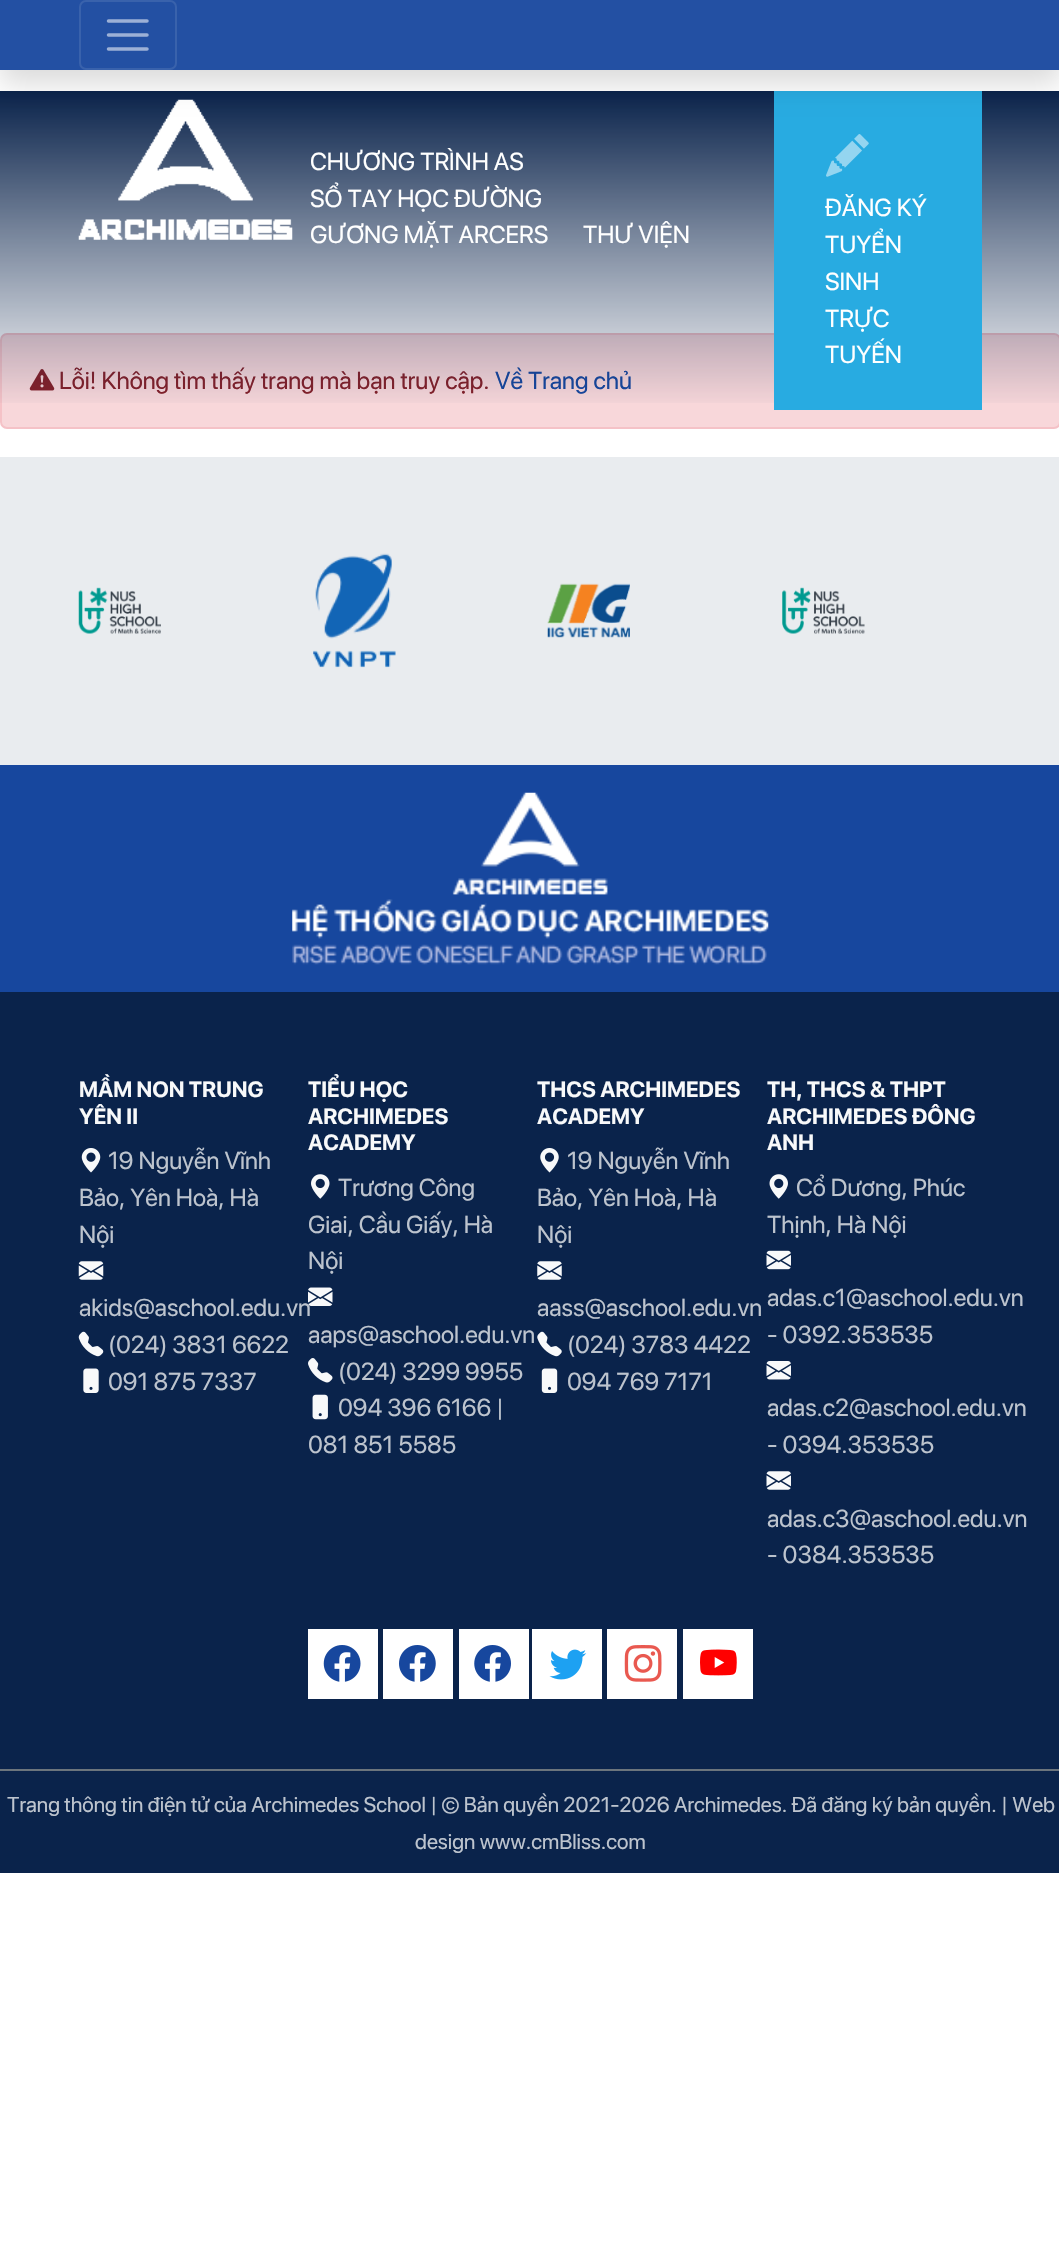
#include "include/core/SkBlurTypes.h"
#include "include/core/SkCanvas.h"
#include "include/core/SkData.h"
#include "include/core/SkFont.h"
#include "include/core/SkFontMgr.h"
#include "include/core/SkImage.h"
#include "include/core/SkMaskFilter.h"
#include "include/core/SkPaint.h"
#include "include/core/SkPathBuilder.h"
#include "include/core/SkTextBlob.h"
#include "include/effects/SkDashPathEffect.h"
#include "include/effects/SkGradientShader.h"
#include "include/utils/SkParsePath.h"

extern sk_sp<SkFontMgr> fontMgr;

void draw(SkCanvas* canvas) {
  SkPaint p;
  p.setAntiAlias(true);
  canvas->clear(SK_ColorWHITE);
  p.setColor(SkColorSetRGB(248, 215, 218));
  canvas->drawRoundRect(SkRect::MakeLTRB(1, 334, 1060, 428), 6, 6, p);
  p.setStyle(SkPaint::kStroke_Style);
  p.setStrokeWidth(2);
  p.setColor(SkColorSetRGB(245, 194, 199));
  canvas->drawRoundRect(SkRect::MakeLTRB(1, 334, 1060, 428), 6, 6, p);
  canvas->drawImageRect(SkImages::DeferredFromEncodedData(SkData::MakeFromFileName("images/3.png")), SkRect::MakeLTRB(29, 369, 55, 391), SkSamplingOptions());
  p.setStyle(SkPaint::kFill_Style);
  p.setColor(SkColorSetRGB(233, 236, 239));
  canvas->drawRect(SkRect::MakeLTRB(0, 457, 1059, 765), p);
  canvas->drawImageRect(SkImages::DeferredFromEncodedData(SkData::MakeFromFileName("images/4.png")), SkRect::MakeLTRB(78, 587, 161, 634), SkSamplingOptions());
  canvas->drawImageRect(SkImages::DeferredFromEncodedData(SkData::MakeFromFileName("images/5.png")), SkRect::MakeLTRB(313, 553, 396, 668), SkSamplingOptions());
  canvas->drawImageRect(SkImages::DeferredFromEncodedData(SkData::MakeFromFileName("images/6.png")), SkRect::MakeLTRB(547, 583, 630, 638), SkSamplingOptions());
  canvas->drawImageRect(SkImages::DeferredFromEncodedData(SkData::MakeFromFileName("images/7.png")), SkRect::MakeLTRB(782, 587, 865, 634), SkSamplingOptions());
  p.setColor(SkColorSetRGB(10, 35, 75));
  canvas->drawRect(SkRect::MakeLTRB(0, 992, 1059, 1769), p);
  p.setColor(SkColorSetRGB(23, 71, 158));
  canvas->drawRect(SkRect::MakeLTRB(0, 765, 1059, 992), p);
  canvas->drawImageRect(SkImages::DeferredFromEncodedData(SkData::MakeFromFileName("images/8.png")), SkRect::MakeLTRB(292, 792, 769, 965), SkSamplingOptions());
  canvas->drawImageRect(SkImages::DeferredFromEncodedData(SkData::MakeFromFileName("images/9.png")), SkRect::MakeLTRB(81, 1148, 101, 1173), SkSamplingOptions());
  canvas->drawImageRect(SkImages::DeferredFromEncodedData(SkData::MakeFromFileName("images/10.png")), SkRect::MakeLTRB(78, 1261, 104, 1280), SkSamplingOptions());
  canvas->drawImageRect(SkImages::DeferredFromEncodedData(SkData::MakeFromFileName("images/11.png")), SkRect::MakeLTRB(78, 1331, 104, 1357), SkSamplingOptions());
  canvas->drawImageRect(SkImages::DeferredFromEncodedData(SkData::MakeFromFileName("images/12.png")), SkRect::MakeLTRB(83, 1368, 99, 1393), SkSamplingOptions());
  canvas->drawImageRect(SkImages::DeferredFromEncodedData(SkData::MakeFromFileName("images/13.png")), SkRect::MakeLTRB(311, 1174, 330, 1199), SkSamplingOptions());
  canvas->drawImageRect(SkImages::DeferredFromEncodedData(SkData::MakeFromFileName("images/14.png")), SkRect::MakeLTRB(308, 1287, 333, 1306), SkSamplingOptions());
  canvas->drawImageRect(SkImages::DeferredFromEncodedData(SkData::MakeFromFileName("images/15.png")), SkRect::MakeLTRB(308, 1358, 333, 1383), SkSamplingOptions());
  canvas->drawImageRect(SkImages::DeferredFromEncodedData(SkData::MakeFromFileName("images/16.png")), SkRect::MakeLTRB(312, 1394, 328, 1420), SkSamplingOptions());
  canvas->drawImageRect(SkImages::DeferredFromEncodedData(SkData::MakeFromFileName("images/17.png")), SkRect::MakeLTRB(540, 1148, 559, 1173), SkSamplingOptions());
  canvas->drawImageRect(SkImages::DeferredFromEncodedData(SkData::MakeFromFileName("images/18.png")), SkRect::MakeLTRB(537, 1261, 562, 1280), SkSamplingOptions());
  canvas->drawImageRect(SkImages::DeferredFromEncodedData(SkData::MakeFromFileName("images/19.png")), SkRect::MakeLTRB(537, 1331, 562, 1357), SkSamplingOptions());
  canvas->drawImageRect(SkImages::DeferredFromEncodedData(SkData::MakeFromFileName("images/20.png")), SkRect::MakeLTRB(541, 1368, 558, 1393), SkSamplingOptions());
  canvas->drawImageRect(SkImages::DeferredFromEncodedData(SkData::MakeFromFileName("images/21.png")), SkRect::MakeLTRB(769, 1174, 788, 1199), SkSamplingOptions());
  canvas->drawImageRect(SkImages::DeferredFromEncodedData(SkData::MakeFromFileName("images/22.png")), SkRect::MakeLTRB(766, 1250, 791, 1270), SkSamplingOptions());
  canvas->drawImageRect(SkImages::DeferredFromEncodedData(SkData::MakeFromFileName("images/23.png")), SkRect::MakeLTRB(766, 1361, 791, 1380), SkSamplingOptions());
  canvas->drawImageRect(SkImages::DeferredFromEncodedData(SkData::MakeFromFileName("images/24.png")), SkRect::MakeLTRB(766, 1471, 791, 1490), SkSamplingOptions());
  p.setColor(SK_ColorWHITE);
  canvas->drawRect(SkRect::MakeLTRB(308, 1629, 378, 1699), p);
  canvas->drawImageRect(SkImages::DeferredFromEncodedData(SkData::MakeFromFileName("images/25.png")), SkRect::MakeLTRB(323, 1645, 361, 1682), SkSamplingOptions());
  canvas->drawRect(SkRect::MakeLTRB(383, 1629, 453, 1699), p);
  canvas->drawImageRect(SkImages::DeferredFromEncodedData(SkData::MakeFromFileName("images/26.png")), SkRect::MakeLTRB(399, 1645, 436, 1682), SkSamplingOptions());
  canvas->drawRect(SkRect::MakeLTRB(459, 1629, 529, 1699), p);
  canvas->drawImageRect(SkImages::DeferredFromEncodedData(SkData::MakeFromFileName("images/27.png")), SkRect::MakeLTRB(474, 1645, 511, 1682), SkSamplingOptions());
  canvas->drawRect(SkRect::MakeLTRB(532, 1629, 602, 1699), p);
  canvas->drawImageRect(SkImages::DeferredFromEncodedData(SkData::MakeFromFileName("images/28.png")), SkRect::MakeLTRB(549, 1649, 587, 1680), SkSamplingOptions());
  canvas->drawRect(SkRect::MakeLTRB(607, 1629, 677, 1699), p);
  canvas->drawImageRect(SkImages::DeferredFromEncodedData(SkData::MakeFromFileName("images/29.png")), SkRect::MakeLTRB(624, 1645, 662, 1682), SkSamplingOptions());
  canvas->drawRect(SkRect::MakeLTRB(683, 1629, 753, 1699), p);
  canvas->drawImageRect(SkImages::DeferredFromEncodedData(SkData::MakeFromFileName("images/30.png")), SkRect::MakeLTRB(700, 1649, 737, 1676), SkSamplingOptions());
  p.setColor(SkColorSetRGB(10, 35, 75));
  canvas->drawRect(SkRect::MakeLTRB(0, 1771, 1059, 1873), p);
  p.setColor(SkColorSetRGB(108, 117, 125));
  canvas->drawRect(SkRect::MakeLTRB(0, 1769, 1059, 1771), p);
  SkFont font1(fontMgr->matchFamilyStyle("SF Pro Display", SkFontStyle::Normal()), 24.5f);
  font1.setSubpixel(true);
  p.setColor(SkColorSetRGB(132, 32, 41));
  canvas->drawString("Lỗi! Không tìm thấy trang mà bạn truy cập.", 59, 389, font1, p);
  p.setColor(SkColorSetRGB(23, 71, 158));
  canvas->drawString("Về Trang chủ", 495, 389, font1, p);
  {
    const SkColor colors[] = {SkColorSetRGB(10, 35, 75), SkColorSetARGB(0, 10, 35, 75)};
    const float stops[] = {0, 1};
    const SkPoint ends[] = {{530, 91}, {530, 410}};
    p.setShader(SkGradientShader::MakeLinear(ends, colors, stops, 2, SkTileMode::kClamp));
    p.setAlpha(255);
  }
  canvas->drawRect(SkRect::MakeLTRB(0, 91, 1059, 403), p);
  canvas->drawImageRect(SkImages::DeferredFromEncodedData(SkData::MakeFromFileName("images/1.png")), SkRect::MakeLTRB(78, 99, 293, 240), SkSamplingOptions());
  p.setShader(nullptr);
  p.setColor(SkColorSetRGB(40, 171, 225));
  canvas->drawRect(SkRect::MakeLTRB(774, 91, 982, 410), p);
  p.setColor(SkColorSetARGB(36, 0, 0, 0));
  p.setMaskFilter(SkMaskFilter::MakeBlur(kNormal_SkBlurStyle, 14));
  canvas->drawRect(SkRect::MakeLTRB(0, 14, 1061, 84), p);
  p.setMaskFilter(nullptr);
  p.setColor(SkColorSetRGB(35, 80, 163));
  canvas->drawRect(SkRect::MakeLTRB(0, 0, 1059, 70), p);
  p.setStyle(SkPaint::kStroke_Style);
  p.setColor(SkColorSetRGB(57, 98, 172));
  canvas->drawRoundRect(SkRect::MakeLTRB(80, 1, 176, 69), 6, 6, p);
  p.setStrokeWidth(3.5f);
  p.setStrokeCap(SkPaint::kRound_Cap);
  p.setColor(SkColorSetRGB(156, 176, 214));
  canvas->drawPath(SkPathBuilder().moveTo(108.5f, 21).lineTo(147, 21).moveTo(108.5f, 35).lineTo(147, 35).moveTo(108.5f, 49).lineTo(147, 49).detach(), p);
  canvas->drawImageRect(SkImages::DeferredFromEncodedData(SkData::MakeFromFileName("images/2.png")), SkRect::MakeLTRB(826, 134, 869, 177), SkSamplingOptions());
  p.setStyle(SkPaint::kFill_Style);
  p.setColor(SK_ColorWHITE);
  canvas->drawString("THƯ VIỆN", 583, 243, font1, p);
  canvas->drawString("GƯƠNG MẶT ARCERS", 310, 243, font1, p);
  canvas->drawString("SỔ TAY HỌC ĐƯỜNG", 310, 207, font1, p);
  canvas->drawString("CHƯƠNG TRÌNH AS", 310, 170, font1, p);
  canvas->drawString("TUYẾN", 825, 363, font1, p);
  canvas->drawString("TRỰC", 825, 327, font1, p);
  canvas->drawString("SINH", 825, 290, font1, p);
  canvas->drawString("TUYỂN", 825, 253, font1, p);
  canvas->drawString("ĐĂNG KÝ", 825, 216, font1, p);
  SkFont font2(fontMgr->matchFamilyStyle("SF Pro Display", SkFontStyle::Bold()), 22);
  font2.setSubpixel(true);
  p.setColor(SkColorSetRGB(248, 249, 250));
  canvas->drawString("MẦM NON TRUNG", 79, 1097, font2, p);
  canvas->drawString("YÊN II", 79, 1124, font2, p);
  p.setColor(SkColorSetRGB(189, 196, 206));
  canvas->drawString("19 Nguyễn Vĩnh", 108, 1169, font1, p);
  canvas->drawString("Bảo, Yên Hoà, Hà", 79, 1206, font1, p);
  canvas->drawString("Nội", 79, 1243, font1, p);
  canvas->drawString("akids@aschool.edu.vn", 79, 1316, font1, p);
  canvas->drawString("(024) 3831 6622", 108, 1353, font1, p);
  canvas->drawString("091 875 7337", 108, 1390, font1, p);
  p.setColor(SkColorSetRGB(248, 249, 250));
  canvas->drawString("TIỂU HỌC", 308, 1097, font2, p);
  canvas->drawString("ARCHIMEDES", 308, 1124, font2, p);
  canvas->drawString("ACADEMY", 308, 1150, font2, p);
  p.setColor(SkColorSetRGB(189, 196, 206));
  canvas->drawString("Trương Công", 338, 1196, font1, p);
  canvas->drawString("Giai, Cầu Giấy, Hà", 308, 1233, font1, p);
  canvas->drawString("Nội", 308, 1269, font1, p);
  canvas->drawString("aaps@aschool.edu.vn", 308, 1343, font1, p);
  canvas->drawString("(024) 3299 9955", 338, 1380, font1, p);
  canvas->drawString("094 396 6166 |", 338, 1416, font1, p);
  canvas->drawString("081 851 5585", 308, 1453, font1, p);
  p.setColor(SkColorSetRGB(248, 249, 250));
  canvas->drawString("THCS ARCHIMEDES", 537, 1097, font2, p);
  canvas->drawString("ACADEMY", 537, 1124, font2, p);
  p.setColor(SkColorSetRGB(189, 196, 206));
  canvas->drawString("19 Nguyễn Vĩnh", 567, 1169, font1, p);
  canvas->drawString("Bảo, Yên Hoà, Hà", 537, 1206, font1, p);
  canvas->drawString("Nội", 537, 1243, font1, p);
  canvas->drawString("aass@aschool.edu.vn", 537, 1316, font1, p);
  canvas->drawString("(024) 3783 4422", 567, 1353, font1, p);
  canvas->drawString("094 769 7171", 567, 1390, font1, p);
  p.setColor(SkColorSetRGB(248, 249, 250));
  canvas->drawString("TH, THCS & THPT", 767, 1097, font2, p);
  canvas->drawString("ARCHIMEDES ĐÔNG", 767, 1124, font2, p);
  canvas->drawString("ANH", 767, 1150, font2, p);
  p.setColor(SkColorSetRGB(189, 196, 206));
  canvas->drawString("Cổ Dương, Phúc", 796, 1196, font1, p);
  canvas->drawString("Thịnh, Hà Nội", 767, 1233, font1, p);
  canvas->drawString("adas.c1@aschool.edu.vn", 767, 1306, font1, p);
  canvas->drawString("- 0392.353535", 767, 1343, font1, p);
  canvas->drawString("adas.c2@aschool.edu.vn", 767, 1416, font1, p);
  canvas->drawString("- 0394.353535", 767, 1453, font1, p);
  canvas->drawString("adas.c3@aschool.edu.vn", 767, 1527, font1, p);
  canvas->drawString("- 0384.353535", 767, 1563, font1, p);
  SkFont font3(fontMgr->matchFamilyStyle("SF Pro Display", SkFontStyle::Normal()), 21.45f);
  font3.setSubpixel(true);
  canvas->drawString("Trang thông tin điện tử của Archimedes School | © Bản quyền 2021-2026 Archimedes. Đã đăng ký bản quyền. | Web", 7, 1812, font3, p);
  canvas->drawString("design www.cmBliss.com", 415, 1849, font3, p);
}
